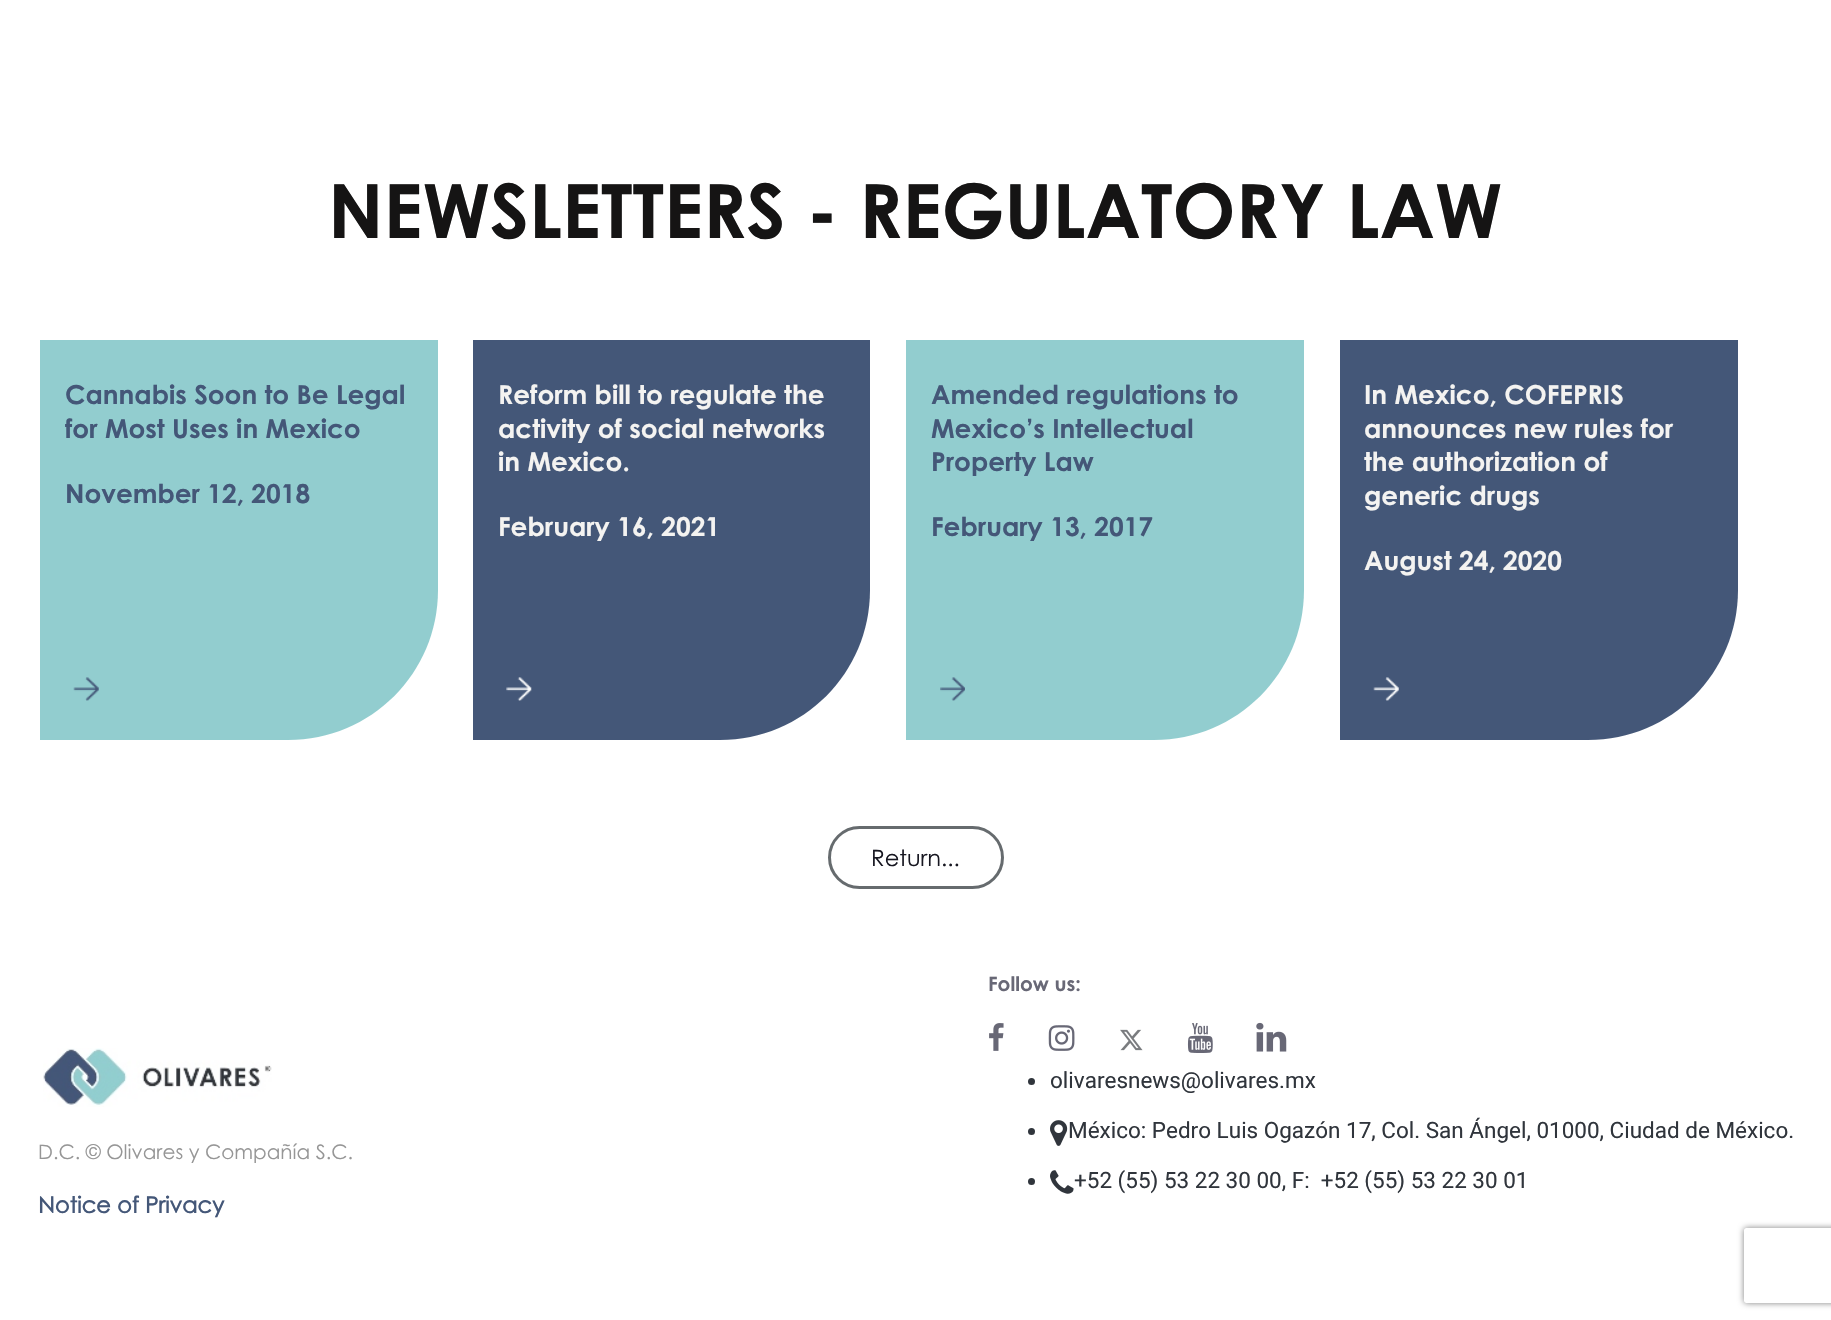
#include "include/core/SkBlurTypes.h"
#include "include/core/SkCanvas.h"
#include "include/core/SkData.h"
#include "include/core/SkFont.h"
#include "include/core/SkFontMgr.h"
#include "include/core/SkImage.h"
#include "include/core/SkMaskFilter.h"
#include "include/core/SkPaint.h"
#include "include/core/SkPathBuilder.h"
#include "include/core/SkTextBlob.h"
#include "include/effects/SkDashPathEffect.h"
#include "include/effects/SkGradientShader.h"
#include "include/utils/SkParsePath.h"

extern sk_sp<SkFontMgr> fontMgr;

void draw(SkCanvas* canvas) {
  SkPaint p;
  p.setAntiAlias(true);
  canvas->clear(SK_ColorWHITE);
  p.setColor(SkColorSetRGB(146, 205, 207));
  canvas->drawPath(SkPathBuilder().moveTo(40, 340).lineTo(438, 340).lineTo(438, 590).cubicTo(438, 673, 371, 740, 288, 740).lineTo(40, 740).close().detach(), p);
  canvas->drawImageRect(SkImages::DeferredFromEncodedData(SkData::MakeFromFileName("images/1.png")), SkRect::MakeLTRB(73, 677, 99, 701), SkSamplingOptions());
  p.setColor(SkColorSetRGB(68, 87, 120));
  canvas->drawPath(SkPathBuilder().moveTo(473, 340).lineTo(870, 340).lineTo(870, 590).cubicTo(870, 673, 803, 740, 720, 740).lineTo(473, 740).close().detach(), p);
  canvas->drawImageRect(SkImages::DeferredFromEncodedData(SkData::MakeFromFileName("images/2.png")), SkRect::MakeLTRB(506, 677, 532, 701), SkSamplingOptions());
  p.setColor(SkColorSetRGB(146, 205, 207));
  canvas->drawPath(SkPathBuilder().moveTo(906, 340).lineTo(1304, 340).lineTo(1304, 590).cubicTo(1304, 673, 1237, 740, 1154, 740).lineTo(906, 740).close().detach(), p);
  canvas->drawImageRect(SkImages::DeferredFromEncodedData(SkData::MakeFromFileName("images/3.png")), SkRect::MakeLTRB(940, 677, 965, 701), SkSamplingOptions());
  p.setColor(SkColorSetRGB(68, 87, 120));
  canvas->drawPath(SkPathBuilder().moveTo(1340, 340).lineTo(1738, 340).lineTo(1738, 590).cubicTo(1738, 673, 1671, 740, 1588, 740).lineTo(1340, 740).close().detach(), p);
  canvas->drawImageRect(SkImages::DeferredFromEncodedData(SkData::MakeFromFileName("images/4.png")), SkRect::MakeLTRB(1373, 677, 1399, 701), SkSamplingOptions());
  p.setStyle(SkPaint::kStroke_Style);
  p.setStrokeWidth(3);
  p.setColor(SkColorSetRGB(102, 107, 110));
  canvas->drawRoundRect(SkRect::MakeLTRB(829.5f, 827.5f, 1002.5f, 887.5f), 30, 30, p);
  canvas->drawImageRect(SkImages::DeferredFromEncodedData(SkData::MakeFromFileName("images/5.png")), SkRect::MakeLTRB(43, 1048, 272, 1107), SkSamplingOptions());
  canvas->drawImageRect(SkImages::DeferredFromEncodedData(SkData::MakeFromFileName("images/6.png")), SkRect::MakeLTRB(989, 1023, 1004, 1051), SkSamplingOptions());
  canvas->drawImageRect(SkImages::DeferredFromEncodedData(SkData::MakeFromFileName("images/7.png")), SkRect::MakeLTRB(1048, 1025, 1075, 1051), SkSamplingOptions());
  canvas->drawImageRect(SkImages::DeferredFromEncodedData(SkData::MakeFromFileName("images/8.png")), SkRect::MakeLTRB(1120, 1029, 1143, 1051), SkSamplingOptions());
  canvas->drawImageRect(SkImages::DeferredFromEncodedData(SkData::MakeFromFileName("images/9.png")), SkRect::MakeLTRB(1187, 1023, 1213, 1053), SkSamplingOptions());
  canvas->drawImageRect(SkImages::DeferredFromEncodedData(SkData::MakeFromFileName("images/10.png")), SkRect::MakeLTRB(1256, 1022, 1287, 1052), SkSamplingOptions());
  p.setStyle(SkPaint::kFill_Style);
  p.setColor(SkColorSetRGB(48, 53, 60));
  canvas->drawCircle(1031.5f, 1081.5f, 3.5f, p);
  canvas->drawCircle(1031.5f, 1131.5f, 3.5f, p);
  canvas->drawImageRect(SkImages::DeferredFromEncodedData(SkData::MakeFromFileName("images/11.png")), SkRect::MakeLTRB(1050, 1120, 1068, 1146), SkSamplingOptions());
  canvas->drawCircle(1031.5f, 1181.5f, 3.5f, p);
  canvas->drawImageRect(SkImages::DeferredFromEncodedData(SkData::MakeFromFileName("images/12.png")), SkRect::MakeLTRB(1050, 1170, 1074, 1194), SkSamplingOptions());
  canvas->save();
  canvas->clipPath(SkPathBuilder(SkPathFillType::kEvenOdd).moveTo(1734, 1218).lineTo(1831, 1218).lineTo(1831, 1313).lineTo(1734, 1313).close().moveTo(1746.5f, 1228).lineTo(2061.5f, 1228).cubicTo(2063, 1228, 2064, 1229, 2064, 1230.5f).lineTo(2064, 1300.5f).cubicTo(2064, 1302, 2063, 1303, 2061.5f, 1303).lineTo(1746.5f, 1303).cubicTo(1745, 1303, 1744, 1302, 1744, 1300.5f).lineTo(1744, 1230.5f).cubicTo(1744, 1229, 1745, 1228, 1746.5f, 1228).close().detach(), true);
  p.setColor(SkColorSetRGB(128, 128, 128));
  p.setMaskFilter(SkMaskFilter::MakeBlur(kNormal_SkBlurStyle, 3));
  canvas->drawRoundRect(SkRect::MakeLTRB(1744, 1228, 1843, 1303), 2.5f, 2.5f, p);
  p.setMaskFilter(nullptr);
  canvas->restore();
  SkFont font1(fontMgr->matchFamilyStyle("Century Gothic", SkFontStyle::Bold()), 75);
  font1.setSubpixel(true);
  p.setColor(SkColorSetRGB(21, 20, 20));
  canvas->drawString("NEWSLETTERS - REGULATORY LAW", 328, 238, font1, p);
  SkFont font2(fontMgr->matchFamilyStyle("Century Gothic", SkFontStyle::Bold()), 26.25f);
  font2.setSubpixel(true);
  p.setColor(SkColorSetRGB(68, 87, 120));
  canvas->drawString("Cannabis Soon to Be Legal", 65, 404, font2, p);
  canvas->drawString("for Most Uses in Mexico", 65, 438, font2, p);
  canvas->drawString("November 12, 2018", 65, 503, font2, p);
  p.setColor(SkColorSetRGB(244, 243, 241));
  canvas->drawString("Reform bill to regulate the", 498, 404, font2, p);
  canvas->drawString("activity of social networks", 498, 438, font2, p);
  canvas->drawString("in Mexico.", 498, 471, font2, p);
  canvas->drawString("February 16, 2021", 498, 536, font2, p);
  p.setColor(SkColorSetRGB(68, 87, 120));
  canvas->drawString("Amended regulations to", 931, 404, font2, p);
  canvas->drawString("Mexico’s Intellectual", 931, 438, font2, p);
  canvas->drawString("Property Law", 931, 471, font2, p);
  canvas->drawString("February 13, 2017", 931, 536, font2, p);
  p.setColor(SkColorSetRGB(244, 243, 241));
  canvas->drawString("In Mexico, COFEPRIS", 1364, 404, font2, p);
  canvas->drawString("announces new rules for", 1364, 438, font2, p);
  canvas->drawString("the authorization of", 1364, 471, font2, p);
  canvas->drawString("generic drugs", 1364, 505, font2, p);
  canvas->drawString("August 24, 2020", 1364, 570, font2, p);
  SkFont font3(fontMgr->matchFamilyStyle("Century Gothic", SkFontStyle::Normal()), 22.5f);
  font3.setSubpixel(true);
  p.setColor(SkColorSetRGB(23, 23, 33));
  canvas->drawString("Return...", 871, 866, font3, p);
  SkFont font4(fontMgr->matchFamilyStyle("Century Gothic", SkFontStyle::Normal()), 20);
  font4.setSubpixel(true);
  p.setColor(SkColorSetRGB(150, 150, 150));
  canvas->drawString("D.C. © Olivares y Compañía S.C.", 38, 1159, font4, p);
  SkFont font5(fontMgr->matchFamilyStyle("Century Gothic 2", SkFontStyle::Bold()), 22.5f);
  font5.setSubpixel(true);
  p.setColor(SkColorSetRGB(68, 87, 120));
  canvas->drawString("Notice of Privacy", 38, 1213, font5, p);
  SkFont font6(fontMgr->matchFamilyStyle("Century Gothic", SkFontStyle::Bold()), 20);
  font6.setSubpixel(true);
  p.setColor(SkColorSetRGB(104, 104, 118));
  canvas->drawString("Follow us:", 988, 991, font6, p);
  SkFont font7(fontMgr->matchFamilyStyle("Roboto", SkFontStyle::Normal()), 22.5f);
  font7.setSubpixel(true);
  p.setColor(SkColorSetRGB(48, 53, 60));
  canvas->drawString("olivaresnews@olivares.mx", 1050, 1088, font7, p);
  canvas->drawString("México: Pedro Luis Ogazón 17, Col. San Ángel, 01000, Ciudad de México.", 1068, 1138, font7, p);
  canvas->drawString("+52 (55) 53 22 30 00, F:  +52 (55) 53 22 30 01", 1074, 1188, font7, p);
}
